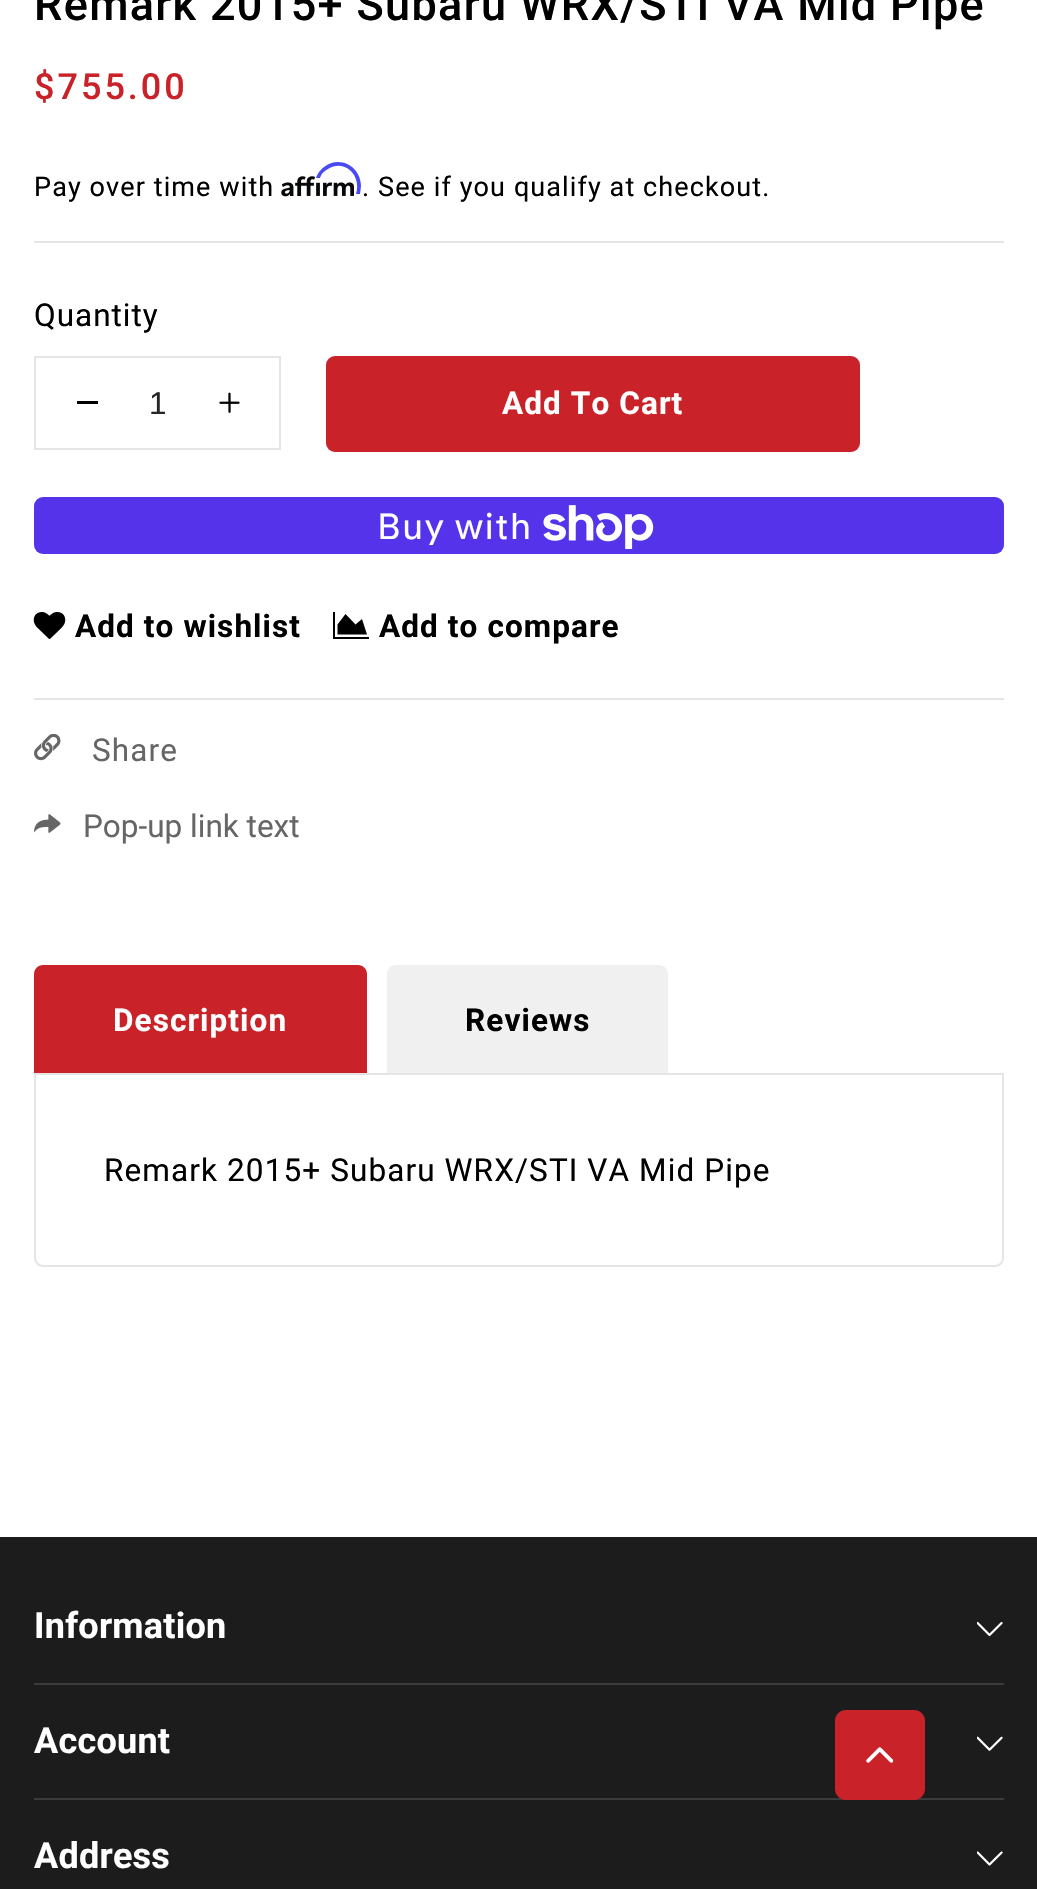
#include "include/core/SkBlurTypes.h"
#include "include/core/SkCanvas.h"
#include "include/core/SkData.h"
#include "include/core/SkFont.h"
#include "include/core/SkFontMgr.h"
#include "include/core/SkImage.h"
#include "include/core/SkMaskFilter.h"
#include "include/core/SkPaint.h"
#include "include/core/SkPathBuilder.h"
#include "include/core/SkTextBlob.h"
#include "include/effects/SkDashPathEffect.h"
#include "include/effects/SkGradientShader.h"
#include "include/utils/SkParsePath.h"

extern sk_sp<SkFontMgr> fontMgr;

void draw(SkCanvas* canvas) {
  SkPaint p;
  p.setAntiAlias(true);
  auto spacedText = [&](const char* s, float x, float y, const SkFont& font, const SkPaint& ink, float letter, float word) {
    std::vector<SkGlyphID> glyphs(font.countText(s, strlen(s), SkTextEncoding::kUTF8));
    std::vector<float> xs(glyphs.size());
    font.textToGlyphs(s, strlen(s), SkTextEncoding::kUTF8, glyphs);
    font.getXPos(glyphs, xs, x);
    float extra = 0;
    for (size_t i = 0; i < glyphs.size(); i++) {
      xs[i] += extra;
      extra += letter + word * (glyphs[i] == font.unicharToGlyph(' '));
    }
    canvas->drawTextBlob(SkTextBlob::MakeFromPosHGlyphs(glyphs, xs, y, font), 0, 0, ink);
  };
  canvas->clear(SK_ColorWHITE);
  p.setColor(SkColorSetRGB(229, 229, 229));
  canvas->drawRect(SkRect::MakeLTRB(34, 241, 1004, 243), p);
  canvas->drawImageRect(SkImages::DeferredFromEncodedData(SkData::MakeFromFileName("images/1.png")), SkRect::MakeLTRB(281, 176, 354, 197), SkSamplingOptions());
  p.setColor(SkColorSetRGB(74, 74, 244));
  canvas->drawPath(SkPathBuilder().moveTo(338, 162).cubicTo(328, 162, 319, 169, 316, 178).lineTo(320, 178).cubicTo(321, 174, 324, 171, 328, 169).cubicTo(345, 158, 362, 176, 356, 194).lineTo(360, 194).lineTo(361, 186).cubicTo(361, 173, 351, 162, 338, 162).close().detach(), p);
  p.setStyle(SkPaint::kStroke_Style);
  p.setStrokeWidth(2);
  p.setColor(SkColorSetRGB(229, 229, 229));
  canvas->drawRect(SkRect::MakeLTRB(35, 357, 280, 449), p);
  p.setStyle(SkPaint::kFill_Style);
  p.setColor(SK_ColorBLACK);
  canvas->drawRect(SkRect::MakeLTRB(77, 401, 98, 404), p);
  canvas->drawImageRect(SkImages::DeferredFromEncodedData(SkData::MakeFromFileName("images/2.png")), SkRect::MakeLTRB(219, 392, 240, 413), SkSamplingOptions());
  p.setColor(SkColorSetRGB(201, 34, 41));
  canvas->drawRoundRect(SkRect::MakeLTRB(326, 356, 860, 452), 9, 9, p);
  p.setColor(SkColorSetRGB(84, 51, 235));
  canvas->drawRoundRect(SkRect::MakeLTRB(34, 497, 1004, 554), 9, 9, p);
  canvas->drawImageRect(SkImages::DeferredFromEncodedData(SkData::MakeFromFileName("images/3.png")), SkRect::MakeLTRB(543, 505, 654, 549), SkSamplingOptions());
  canvas->drawImageRect(SkImages::DeferredFromEncodedData(SkData::MakeFromFileName("images/4.png")), SkRect::MakeLTRB(33, 612, 66, 639), SkSamplingOptions());
  p.setColor(SK_ColorBLACK);
  canvas->drawPath(SkPathBuilder().moveTo(369, 637).lineTo(369, 639).lineTo(333, 639).lineTo(333, 612).lineTo(335, 612).lineTo(335, 637).close().moveTo(362, 619).lineTo(367, 634.5f).lineTo(337.5f, 634.5f).lineTo(337.5f, 624.5f).lineTo(345.5f, 614).lineTo(355.5f, 624.5f).close().detach(), p);
  p.setColor(SkColorSetRGB(229, 229, 229));
  canvas->drawRect(SkRect::MakeLTRB(34, 698, 1004, 700), p);
  canvas->drawImageRect(SkImages::DeferredFromEncodedData(SkData::MakeFromFileName("images/5.png")), SkRect::MakeLTRB(34, 734, 61, 761), SkSamplingOptions());
  canvas->drawImageRect(SkImages::DeferredFromEncodedData(SkData::MakeFromFileName("images/6.png")), SkRect::MakeLTRB(34, 814, 61, 833), SkSamplingOptions());
  p.setColor(SkColorSetRGB(201, 34, 41));
  canvas->drawPath(SkPathBuilder().moveTo(43, 965).lineTo(358, 965).cubicTo(363, 965, 367, 969, 367, 974).lineTo(367, 1073).lineTo(34, 1073).lineTo(34, 974).cubicTo(34, 969, 38, 965, 43, 965).close().detach(), p);
  p.setColor(SkColorSetRGB(240, 240, 240));
  canvas->drawPath(SkPathBuilder().moveTo(396, 965).lineTo(659, 965).cubicTo(664, 965, 668, 969, 668, 974).lineTo(668, 1073).lineTo(387, 1073).lineTo(387, 974).cubicTo(387, 969, 391, 965, 396, 965).close().detach(), p);
  p.setStyle(SkPaint::kStroke_Style);
  p.setColor(SkColorSetRGB(229, 229, 229));
  canvas->drawPath(SkPathBuilder().moveTo(35, 1074).lineTo(1003, 1074).lineTo(1003, 1258).cubicTo(1003, 1262.5f, 999.5f, 1266, 995, 1266).lineTo(43, 1266).cubicTo(38.5f, 1266, 35, 1262.5f, 35, 1258).close().detach(), p);
  p.setStyle(SkPaint::kFill_Style);
  p.setColor(SkColorSetRGB(28, 28, 28));
  canvas->drawRect(SkRect::MakeLTRB(0, 1537, 1037, 1889), p);
  p.setColor(SkColorSetRGB(59, 58, 60));
  canvas->drawRect(SkRect::MakeLTRB(34, 1683, 1004, 1685), p);
  canvas->drawImageRect(SkImages::DeferredFromEncodedData(SkData::MakeFromFileName("images/7.png")), SkRect::MakeLTRB(977, 1621, 1003, 1637), SkSamplingOptions());
  canvas->drawRect(SkRect::MakeLTRB(34, 1798, 1004, 1800), p);
  canvas->drawImageRect(SkImages::DeferredFromEncodedData(SkData::MakeFromFileName("images/8.png")), SkRect::MakeLTRB(977, 1736, 1003, 1751), SkSamplingOptions());
  canvas->drawImageRect(SkImages::DeferredFromEncodedData(SkData::MakeFromFileName("images/9.png")), SkRect::MakeLTRB(977, 1851, 1003, 1866), SkSamplingOptions());
  p.setColor(SkColorSetRGB(201, 34, 41));
  canvas->drawRoundRect(SkRect::MakeLTRB(835, 1710, 925, 1800), 11, 11, p);
  canvas->drawImageRect(SkImages::DeferredFromEncodedData(SkData::MakeFromFileName("images/10.png")), SkRect::MakeLTRB(866, 1747, 893, 1763), SkSamplingOptions());
  SkFont font1(fontMgr->matchFamilyStyle("Roboto", SkFontStyle(500, SkFontStyle::kNormal_Width, SkFontStyle::kUpright_Slant)), 45);
  font1.setSubpixel(true);
  p.setColor(SK_ColorBLACK);
  spacedText("Remark 2015+ Subaru WRX/STI VA Mid Pipe", 34, 20, font1, p, 1.35f, 0);
  SkFont font2(fontMgr->matchFamilyStyle("Roboto", SkFontStyle(500, SkFontStyle::kNormal_Width, SkFontStyle::kUpright_Slant)), 36);
  font2.setSubpixel(true);
  p.setColor(SkColorSetRGB(201, 34, 41));
  spacedText("$755.00", 34, 99, font2, p, 3, 0);
  SkFont font3(fontMgr->matchFamilyStyle("Roboto", SkFontStyle::Normal()), 27);
  font3.setSubpixel(true);
  p.setColor(SK_ColorBLACK);
  spacedText("Pay over time with", 34, 196, font3, p, 1.1f, 0);
  spacedText(". See if you qualify at checkout.", 362, 196, font3, p, 1.1f, 0);
  SkFont font4(fontMgr->matchFamilyStyle("Roboto", SkFontStyle::Normal()), 31.5f);
  font4.setSubpixel(true);
  spacedText("Quantity", 34, 326, font4, p, 1, 0);
  SkFont font5(fontMgr->matchFamilyStyle("Liberation Sans", SkFontStyle::Normal()), 31.5f);
  font5.setSubpixel(true);
  p.setColor(SkColorSetRGB(38, 38, 38));
  canvas->drawString("1", 149, 414, font5, p);
  SkFont font6(fontMgr->matchFamilyStyle("Roboto", SkFontStyle::Bold()), 31.5f);
  font6.setSubpixel(true);
  p.setColor(SK_ColorWHITE);
  spacedText("Add To Cart", 502, 414, font6, p, 1.1f, 0);
  SkFont font7(fontMgr->matchFamilyStyle("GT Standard", SkFontStyle::Normal()), 36);
  font7.setSubpixel(true);
  spacedText("Buy with", 377, 539, font7, p, 1.1f, 0);
  p.setColor(SK_ColorBLACK);
  spacedText("Add to wishlist", 75, 637, font6, p, 1.1f, 0);
  spacedText("Add to compare", 379, 637, font6, p, 1.1f, 0);
  p.setColor(SkColorSetRGB(102, 102, 102));
  spacedText("Share", 92, 761, font4, p, 1.1f, 0);
  canvas->drawString("Pop-up link text", 83, 837, font4, p);
  p.setColor(SK_ColorWHITE);
  spacedText("Description", 113, 1031, font6, p, 1.1f, 0);
  p.setColor(SK_ColorBLACK);
  spacedText("Reviews", 465, 1031, font6, p, 1.1f, 0);
  spacedText("Remark 2015+ Subaru WRX/STI VA Mid Pipe", 104, 1181, font4, p, 1.1f, 0);
  SkFont font8(fontMgr->matchFamilyStyle("Roboto", SkFontStyle::Bold()), 36);
  font8.setSubpixel(true);
  p.setColor(SK_ColorWHITE);
  spacedText("Information", 34, 1638, font8, p, 0.25f, 0);
  spacedText("Account", 34, 1753, font8, p, 0.25f, 0);
  spacedText("Address", 34, 1868, font8, p, 0.25f, 0);
}
